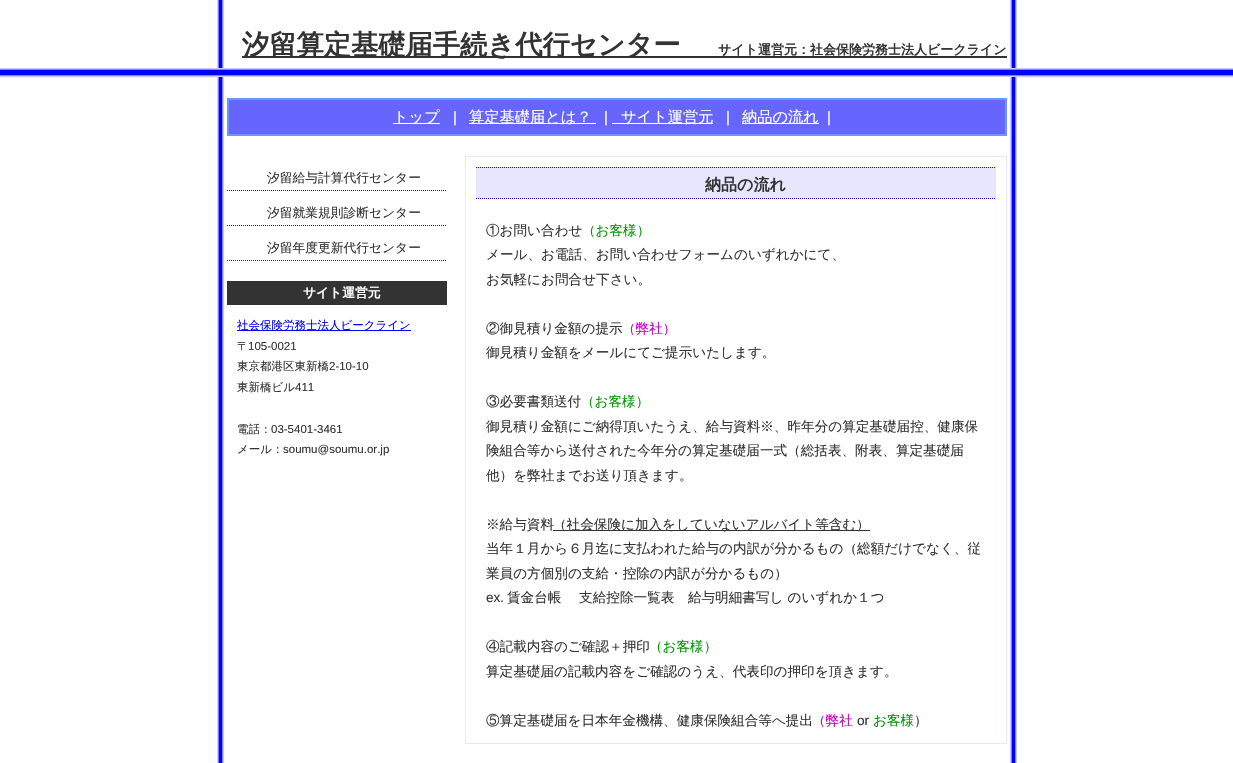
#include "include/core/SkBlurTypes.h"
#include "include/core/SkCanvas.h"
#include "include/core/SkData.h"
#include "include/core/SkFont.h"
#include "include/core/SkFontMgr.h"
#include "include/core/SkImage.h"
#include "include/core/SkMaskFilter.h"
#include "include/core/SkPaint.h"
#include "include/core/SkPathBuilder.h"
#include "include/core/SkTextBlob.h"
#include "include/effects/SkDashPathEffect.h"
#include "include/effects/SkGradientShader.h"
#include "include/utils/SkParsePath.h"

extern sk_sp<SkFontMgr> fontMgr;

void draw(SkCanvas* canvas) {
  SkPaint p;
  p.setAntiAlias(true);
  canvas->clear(SK_ColorWHITE);
  canvas->drawImageRect(SkImages::DeferredFromEncodedData(SkData::MakeFromFileName("images/1.png")), SkRect::MakeLTRB(0, 68, 1233, 78), SkSamplingOptions());
  canvas->drawImageRect(SkImages::DeferredFromEncodedData(SkData::MakeFromFileName("images/2.png")), SkRect::MakeLTRB(217, 0, 1017, 763), SkSamplingOptions());
  p.setColor(SkColorSetRGB(51, 51, 51));
  canvas->drawRect(SkRect::MakeLTRB(242, 56, 1007, 58), p);
  canvas->drawImageRect(SkImages::DeferredFromEncodedData(SkData::MakeFromFileName("images/3.png")), SkRect::MakeLTRB(217, 68, 1017, 77), SkSamplingOptions());
  p.setColor(SkColorSetRGB(102, 102, 255));
  canvas->drawRect(SkRect::MakeLTRB(228, 99, 1006, 135), p);
  p.setStyle(SkPaint::kStroke_Style);
  p.setStrokeWidth(2);
  p.setColor(SkColorSetRGB(102, 153, 255));
  canvas->drawRect(SkRect::MakeLTRB(228, 99, 1006, 135), p);
  p.setStyle(SkPaint::kFill_Style);
  p.setColor(SK_ColorWHITE);
  canvas->drawRect(SkRect::MakeLTRB(393, 123, 440, 124), p);
  canvas->drawRect(SkRect::MakeLTRB(469, 123, 596, 124), p);
  canvas->drawRect(SkRect::MakeLTRB(612, 123, 713, 124), p);
  canvas->drawRect(SkRect::MakeLTRB(742, 123, 819, 124), p);
  p.setStyle(SkPaint::kStroke_Style);
  p.setStrokeWidth(1);
  p.setColor(SkColorSetRGB(51, 0, 255));
  p.setPathEffect(SkDashPathEffect::Make({{1, 1}}, 0));
  canvas->drawPath(SkPathBuilder().moveTo(227, 190.5f).lineTo(447, 190.5f).detach(), p);
  p.setPathEffect(nullptr);
  p.setPathEffect(SkDashPathEffect::Make({{1, 1}}, 0));
  canvas->drawPath(SkPathBuilder().moveTo(227, 225.5f).lineTo(447, 225.5f).detach(), p);
  p.setPathEffect(nullptr);
  p.setPathEffect(SkDashPathEffect::Make({{1, 1}}, 0));
  canvas->drawPath(SkPathBuilder().moveTo(227, 260.5f).lineTo(447, 260.5f).detach(), p);
  p.setPathEffect(nullptr);
  p.setStyle(SkPaint::kFill_Style);
  p.setColor(SkColorSetRGB(51, 51, 51));
  canvas->drawRect(SkRect::MakeLTRB(227, 281, 447, 305), p);
  p.setColor(SkColorSetRGB(0, 0, 255));
  canvas->drawRect(SkRect::MakeLTRB(237, 330, 411, 331), p);
  p.setStyle(SkPaint::kStroke_Style);
  p.setColor(SkColorSetRGB(230, 231, 255));
  canvas->drawRect(SkRect::MakeLTRB(465.5f, 156.5f, 1006.5f, 743.5f), p);
  p.setStyle(SkPaint::kFill_Style);
  canvas->drawRect(SkRect::MakeLTRB(476, 167, 996, 199), p);
  p.setStyle(SkPaint::kStroke_Style);
  p.setColor(SkColorSetRGB(51, 0, 255));
  p.setPathEffect(SkDashPathEffect::Make({{1, 1}}, 0));
  canvas->drawPath(SkPathBuilder().moveTo(476, 167.5f).lineTo(996, 167.5f).detach(), p);
  p.setPathEffect(nullptr);
  p.setPathEffect(SkDashPathEffect::Make({{1, 1}}, 0));
  canvas->drawPath(SkPathBuilder().moveTo(476, 198.5f).lineTo(996, 198.5f).detach(), p);
  p.setPathEffect(nullptr);
  p.setStyle(SkPaint::kFill_Style);
  p.setColor(SkColorSetRGB(51, 51, 51));
  canvas->drawRect(SkRect::MakeLTRB(553, 530, 870, 531), p);
  SkFont font1(fontMgr->matchFamilyStyle("WenQuanYi Zen Hei", SkFontStyle::Bold()), 27.25f);
  font1.setSubpixel(true);
  canvas->drawString("汐留算定基礎届手続き代行センター", 242, 54, font1, p);
  SkFont font2(fontMgr->matchFamilyStyle("WenQuanYi Zen Hei", SkFontStyle::Bold()), 13);
  font2.setSubpixel(true);
  canvas->drawString("サイト運営元：社会保険労務士法人ビークライン", 718, 54, font2, p);
  SkFont font3(fontMgr->matchFamilyStyle("WenQuanYi Zen Hei", SkFontStyle(500, SkFontStyle::kNormal_Width, SkFontStyle::kUpright_Slant)), 15.25f);
  font3.setSubpixel(true);
  p.setColor(SK_ColorWHITE);
  canvas->drawString("トップ", 393, 122, font3, p);
  SkFont font4(fontMgr->matchFamilyStyle("Liberation Sans", SkFontStyle::Normal()), 15.25f);
  font4.setSubpixel(true);
  canvas->drawString("|", 453, 122, font4, p);
  canvas->drawString("算定基礎届とは？", 469, 122, font3, p);
  canvas->drawString("|", 604, 122, font4, p);
  canvas->drawString("サイト運営元", 621, 122, font3, p);
  canvas->drawString("|", 726, 122, font4, p);
  canvas->drawString("納品の流れ", 742, 122, font3, p);
  canvas->drawString("|", 827, 122, font4, p);
  SkFont font5(fontMgr->matchFamilyStyle("WenQuanYi Zen Hei", SkFontStyle(500, SkFontStyle::kNormal_Width, SkFontStyle::kUpright_Slant)), 12.75f);
  font5.setSubpixel(true);
  p.setColor(SkColorSetRGB(51, 51, 51));
  canvas->drawString("汐留給与計算代行センター", 267, 182, font5, p);
  canvas->drawString("汐留就業規則診断センター", 267, 217, font5, p);
  canvas->drawString("汐留年度更新代行センター", 267, 252, font5, p);
  SkFont font6(fontMgr->matchFamilyStyle("WenQuanYi Zen Hei", SkFontStyle::Bold()), 12.75f);
  font6.setSubpixel(true);
  p.setColor(SK_ColorWHITE);
  canvas->drawString("サイト運営元", 303, 297, font6, p);
  SkFont font7(fontMgr->matchFamilyStyle("WenQuanYi Zen Hei", SkFontStyle(500, SkFontStyle::kNormal_Width, SkFontStyle::kUpright_Slant)), 11.5f);
  font7.setSubpixel(true);
  p.setColor(SkColorSetRGB(0, 0, 255));
  canvas->drawString("社会保険労務士法人ビークライン", 237, 329, font7, p);
  p.setColor(SkColorSetRGB(51, 51, 51));
  canvas->drawString("〒", 237, 350, font7, p);
  SkFont font8(fontMgr->matchFamilyStyle("Liberation Sans", SkFontStyle::Normal()), 11.5f);
  font8.setSubpixel(true);
  canvas->drawString("105-0021", 248, 350, font8, p);
  canvas->drawString("東京都港区東新橋", 237, 370, font7, p);
  canvas->drawString("2-10-10", 329, 370, font8, p);
  canvas->drawString("東新橋ビル", 237, 391, font7, p);
  canvas->drawString("411", 295, 391, font8, p);
  canvas->drawString("電話：", 237, 433, font7, p);
  canvas->drawString("03-5401-3461", 271, 433, font8, p);
  canvas->drawString("メール：", 237, 453, font7, p);
  canvas->drawString("soumu@soumu.or.jp", 283, 453, font8, p);
  SkFont font9(fontMgr->matchFamilyStyle("WenQuanYi Zen Hei", SkFontStyle::Bold()), 16);
  font9.setSubpixel(true);
  canvas->drawString("納品の流れ", 705, 190, font9, p);
  SkFont font10(fontMgr->matchFamilyStyle("WenQuanYi Zen Hei", SkFontStyle(500, SkFontStyle::kNormal_Width, SkFontStyle::kUpright_Slant)), 13.6f);
  font10.setSubpixel(true);
  canvas->drawString("①お問い合わせ", 486, 235, font10, p);
  p.setColor(SkColorSetRGB(0, 153, 0));
  canvas->drawString("（お客様）", 582, 235, font10, p);
  p.setColor(SkColorSetRGB(51, 51, 51));
  canvas->drawString("メール、お電話、お問い合わせフォームのいずれかにて、", 486, 259, font10, p);
  canvas->drawString("お気軽にお問合せ下さい。", 486, 284, font10, p);
  canvas->drawString("②御見積り金額の提示", 486, 333, font10, p);
  p.setColor(SkColorSetRGB(204, 0, 204));
  canvas->drawString("（弊社）", 622, 333, font10, p);
  p.setColor(SkColorSetRGB(51, 51, 51));
  canvas->drawString("御見積り金額をメールにてご提示いたします。", 486, 357, font10, p);
  canvas->drawString("③必要書類送付", 486, 406, font10, p);
  p.setColor(SkColorSetRGB(0, 153, 0));
  canvas->drawString("（お客様）", 581, 406, font10, p);
  p.setColor(SkColorSetRGB(51, 51, 51));
  canvas->drawString("御見積り金額にご納得頂いたうえ、給与資料※、昨年分の算定基礎届控、健康保", 486, 431, font10, p);
  canvas->drawString("険組合等から送付された今年分の算定基礎届一式（総括表、附表、算定基礎届", 486, 455, font10, p);
  canvas->drawString("他）を弊社までお送り頂きます。", 486, 480, font10, p);
  canvas->drawString("※給与資料", 486, 529, font10, p);
  canvas->drawString("（社会保険に加入をしていないアルバイト等含む）", 553, 529, font10, p);
  canvas->drawString("当年１月から６月迄に支払われた給与の内訳が分かるもの（総額だけでなく、従", 486, 553, font10, p);
  canvas->drawString("業員の方個別の支給・控除の内訳が分かるもの）", 486, 578, font10, p);
  SkFont font11(fontMgr->matchFamilyStyle("Liberation Sans", SkFontStyle::Normal()), 13.6f);
  font11.setSubpixel(true);
  canvas->drawString("ex.", 486, 602, font11, p);
  canvas->drawString("賃金台帳　 支給控除一覧表　給与明細書写し のいずれか１つ", 507, 602, font10, p);
  canvas->drawString("④記載内容のご確認＋押印", 486, 651, font10, p);
  p.setColor(SkColorSetRGB(0, 153, 0));
  canvas->drawString("（お客様）", 649, 651, font10, p);
  p.setColor(SkColorSetRGB(51, 51, 51));
  canvas->drawString("算定基礎届の記載内容をご確認のうえ、代表印の押印を頂きます。", 486, 676, font10, p);
  canvas->drawString("⑤算定基礎届を日本年金機構、健康保険組合等へ提出", 486, 725, font10, p);
  p.setColor(SkColorSetRGB(204, 0, 204));
  canvas->drawString("（弊社", 812, 725, font10, p);
  p.setColor(SkColorSetRGB(51, 51, 51));
  canvas->drawString("or", 857, 725, font11, p);
  p.setColor(SkColorSetRGB(0, 153, 0));
  canvas->drawString("お客様", 873, 725, font10, p);
  p.setColor(SkColorSetRGB(51, 51, 51));
  canvas->drawString("）", 914, 725, font10, p);
}
